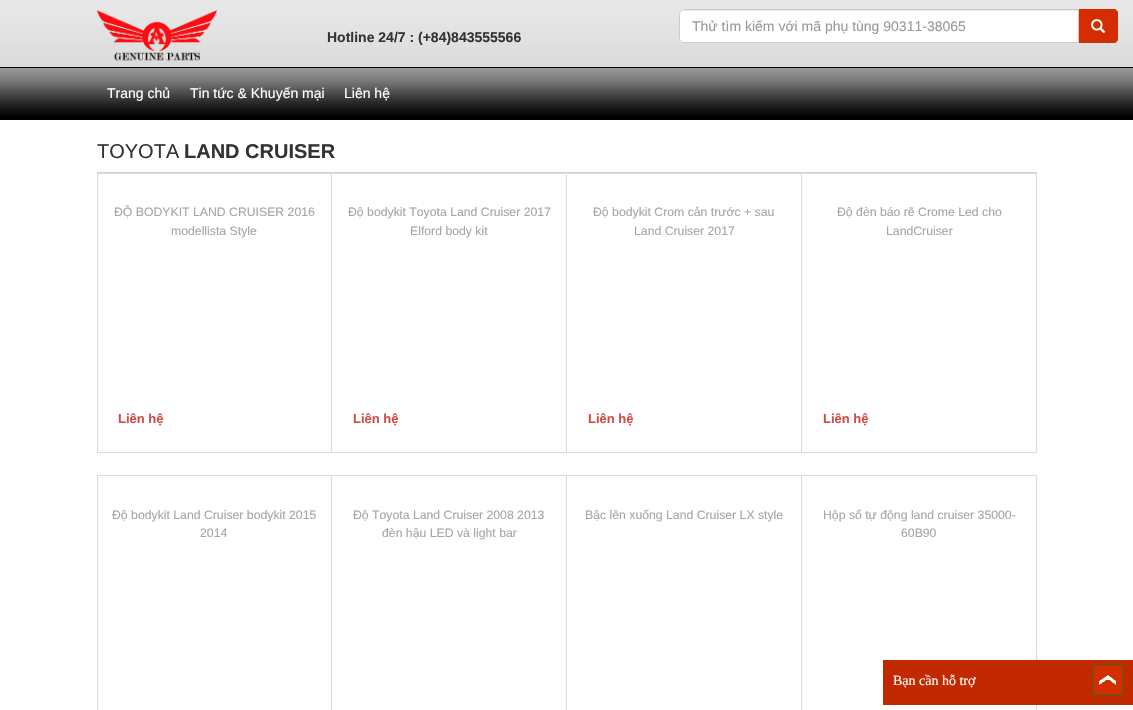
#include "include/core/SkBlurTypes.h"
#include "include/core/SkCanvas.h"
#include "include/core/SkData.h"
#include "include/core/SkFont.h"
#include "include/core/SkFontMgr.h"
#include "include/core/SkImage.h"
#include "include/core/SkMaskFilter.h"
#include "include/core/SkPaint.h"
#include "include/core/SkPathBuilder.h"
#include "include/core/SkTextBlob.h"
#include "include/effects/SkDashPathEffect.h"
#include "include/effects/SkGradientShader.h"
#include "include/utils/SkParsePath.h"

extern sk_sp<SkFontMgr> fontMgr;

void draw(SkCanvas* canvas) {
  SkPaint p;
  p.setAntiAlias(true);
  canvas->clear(SK_ColorWHITE);
  p.setColor(SK_ColorBLACK);
  canvas->drawRect(SkRect::MakeLTRB(0, 67, 1133, 120), p);
  canvas->drawImageRect(SkImages::DeferredFromEncodedData(SkData::MakeFromFileName("images/1.png")), SkRect::MakeLTRB(0, 0, 1133, 67), SkSamplingOptions());
  p.setColor(SK_ColorWHITE);
  canvas->drawPath(SkPathBuilder().moveTo(684, 9).lineTo(1079, 9).lineTo(1079, 43).lineTo(684, 43).cubicTo(681, 43, 679, 41, 679, 38).lineTo(679, 14).cubicTo(679, 11, 681, 9, 684, 9).close().detach(), p);
  p.setColor(SkColorSetRGB(236, 236, 236));
  canvas->drawPath(SkPathBuilder().moveTo(684, 11).lineTo(1078, 11).lineTo(1078, 10).lineTo(684, 10).cubicTo(681, 10, 680, 12, 680, 15).cubicTo(680, 13, 682, 11, 684, 11).close().detach(), p);
  p.setStyle(SkPaint::kStroke_Style);
  p.setStrokeWidth(1);
  p.setColor(SkColorSetRGB(204, 204, 204));
  canvas->drawPath(SkPathBuilder().moveTo(684, 9.5f).lineTo(1078.5f, 9.5f).lineTo(1078.5f, 42.5f).lineTo(684, 42.5f).cubicTo(681.5f, 42.5f, 679.5f, 40.5f, 679.5f, 38).lineTo(679.5f, 14).cubicTo(679.5f, 11.5f, 681.5f, 9.5f, 684, 9.5f).close().detach(), p);
  p.setStyle(SkPaint::kFill_Style);
  p.setColor(SkColorSetRGB(212, 46, 0));
  canvas->drawPath(SkPathBuilder().moveTo(1079, 9).lineTo(1113, 9).cubicTo(1116, 9, 1118, 11, 1118, 14).lineTo(1118, 38).cubicTo(1118, 41, 1116, 43, 1113, 43).lineTo(1079, 43).close().detach(), p);
  canvas->drawPath(SkPathBuilder(SkPathFillType::kEvenOdd).moveTo(1079, 9).lineTo(1113, 9).cubicTo(1116, 9, 1118, 11, 1118, 14).lineTo(1118, 38).cubicTo(1118, 41, 1116, 43, 1113, 43).lineTo(1079, 43).close().moveTo(1079, 10).lineTo(1113, 10).cubicTo(1115, 10, 1117, 12, 1117, 14).lineTo(1117, 38).cubicTo(1117, 40, 1115, 42, 1113, 42).lineTo(1079, 42).close().detach(), p);
  canvas->drawImageRect(SkImages::DeferredFromEncodedData(SkData::MakeFromFileName("images/2.png")), SkRect::MakeLTRB(1091, 19, 1106, 33), SkSamplingOptions());
  canvas->drawImageRect(SkImages::DeferredFromEncodedData(SkData::MakeFromFileName("images/3.png")), SkRect::MakeLTRB(0, 68, 1133, 116), SkSamplingOptions());
  canvas->drawImageRect(SkImages::DeferredFromEncodedData(SkData::MakeFromFileName("images/4.png")), SkRect::MakeLTRB(97, 9, 217, 61), SkSamplingOptions());
  p.setColor(SkColorSetRGB(210, 210, 210));
  canvas->drawRect(SkRect::MakeLTRB(97, 172, 1037, 173), p);
  p.setStyle(SkPaint::kStroke_Style);
  p.setColor(SkColorSetRGB(219, 219, 219));
  canvas->drawRect(SkRect::MakeLTRB(97.5f, 173.5f, 331.5f, 452.5f), p);
  p.setStyle(SkPaint::kFill_Style);
  canvas->drawPath(SkPathBuilder().moveTo(332, 173).lineTo(567, 173).lineTo(566, 174).lineTo(333, 174).close().detach(), p);
  canvas->drawRect(SkRect::MakeLTRB(566, 173, 567, 453), p);
  canvas->drawPath(SkPathBuilder().moveTo(567, 453).lineTo(332, 453).lineTo(333, 452).lineTo(566, 452).close().detach(), p);
  canvas->drawPath(SkPathBuilder().moveTo(567, 173).lineTo(802, 173).lineTo(801, 174).lineTo(568, 174).close().detach(), p);
  canvas->drawRect(SkRect::MakeLTRB(801, 173, 802, 453), p);
  canvas->drawPath(SkPathBuilder().moveTo(802, 453).lineTo(567, 453).lineTo(568, 452).lineTo(801, 452).close().detach(), p);
  canvas->drawPath(SkPathBuilder().moveTo(802, 173).lineTo(1037, 173).lineTo(1036, 174).lineTo(803, 174).close().detach(), p);
  canvas->drawRect(SkRect::MakeLTRB(1036, 173, 1037, 453), p);
  canvas->drawPath(SkPathBuilder().moveTo(1037, 453).lineTo(802, 453).lineTo(803, 452).lineTo(1036, 452).close().detach(), p);
  p.setStyle(SkPaint::kStroke_Style);
  canvas->drawRect(SkRect::MakeLTRB(97.5f, 475.5f, 331.5f, 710.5f), p);
  p.setStyle(SkPaint::kFill_Style);
  canvas->drawPath(SkPathBuilder().moveTo(332, 475).lineTo(567, 475).lineTo(566, 476).lineTo(333, 476).close().detach(), p);
  canvas->drawRect(SkRect::MakeLTRB(566, 475, 567, 710), p);
  canvas->drawPath(SkPathBuilder().moveTo(567, 475).lineTo(802, 475).lineTo(801, 476).lineTo(568, 476).close().detach(), p);
  canvas->drawRect(SkRect::MakeLTRB(801, 475, 802, 710), p);
  canvas->drawPath(SkPathBuilder().moveTo(802, 475).lineTo(1037, 475).lineTo(1036, 476).lineTo(803, 476).close().detach(), p);
  canvas->drawRect(SkRect::MakeLTRB(1036, 475, 1037, 710), p);
  p.setColor(SkColorSetRGB(193, 42, 0));
  canvas->drawRect(SkRect::MakeLTRB(883, 660, 1133, 705), p);
  canvas->drawImageRect(SkImages::DeferredFromEncodedData(SkData::MakeFromFileName("images/5.png")), SkRect::MakeLTRB(1093, 665, 1123, 695), SkSamplingOptions());
  SkFont font1(fontMgr->matchFamilyStyle("Liberation Sans", SkFontStyle::Normal()), 14);
  font1.setSubpixel(true);
  p.setColor(SkColorSetRGB(153, 153, 153));
  canvas->drawString("Thử tìm kiếm với mã phụ tùng 90311-38065", 692, 31, font1, p);
  SkFont font2(fontMgr->matchFamilyStyle("Liberation Sans", SkFontStyle::Bold()), 14);
  font2.setSubpixel(true);
  p.setColor(SkColorSetRGB(51, 51, 51));
  canvas->drawString("Hotline 24/7 : (+84)843555566", 327, 42, font2, p);
  p.setColor(SK_ColorWHITE);
  canvas->drawString("Trang chủ", 107, 98, font1, p);
  canvas->drawString("Tin tức & Khuyến mại", 190, 98, font1, p);
  canvas->drawString("Liên hệ", 344, 98, font1, p);
  SkFont font3(fontMgr->matchFamilyStyle("Liberation Sans", SkFontStyle::Normal()), 20);
  font3.setSubpixel(true);
  p.setColor(SkColorSetRGB(51, 51, 51));
  canvas->drawString("TOYOTA", 97, 158, font3, p);
  SkFont font4(fontMgr->matchFamilyStyle("Liberation Sans", SkFontStyle::Bold()), 20);
  font4.setSubpixel(true);
  canvas->drawString("LAND CRUISER", 184, 158, font4, p);
  SkFont font5(fontMgr->matchFamilyStyle("Liberation Sans", SkFontStyle::Normal()), 12.25f);
  font5.setSubpixel(true);
  p.setColor(SkColorSetRGB(165, 165, 165));
  canvas->drawString("ĐỘ BODYKIT LAND CRUISER 2016", 114, 216, font5, p);
  canvas->drawString("modellista Style", 171, 235, font5, p);
  SkFont font6(fontMgr->matchFamilyStyle("Liberation Sans", SkFontStyle::Bold()), 13);
  font6.setSubpixel(true);
  p.setColor(SkColorSetRGB(206, 78, 69));
  canvas->drawString("Liên hệ", 118, 423, font6, p);
  p.setColor(SkColorSetRGB(165, 165, 165));
  canvas->drawString("Độ bodykit Toyota Land Cruiser 2017", 348, 216, font5, p);
  canvas->drawString("Elford body kit", 410, 235, font5, p);
  p.setColor(SkColorSetRGB(206, 78, 69));
  canvas->drawString("Liên hệ", 353, 423, font6, p);
  p.setColor(SkColorSetRGB(165, 165, 165));
  canvas->drawString("Độ bodykit Crom cản trước + sau", 593, 216, font5, p);
  canvas->drawString("Land Cruiser 2017", 634, 235, font5, p);
  p.setColor(SkColorSetRGB(206, 78, 69));
  canvas->drawString("Liên hệ", 588, 423, font6, p);
  p.setColor(SkColorSetRGB(165, 165, 165));
  canvas->drawString("Độ đèn báo rẽ Crome Led cho", 837, 216, font5, p);
  canvas->drawString("LandCruiser", 886, 235, font5, p);
  p.setColor(SkColorSetRGB(206, 78, 69));
  canvas->drawString("Liên hệ", 823, 423, font6, p);
  p.setColor(SkColorSetRGB(165, 165, 165));
  canvas->drawString("Độ bodykit Land Cruiser bodykit 2015", 112, 519, font5, p);
  canvas->drawString("2014", 200, 537, font5, p);
  canvas->drawString("Độ Toyota Land Cruiser 2008 2013", 353, 519, font5, p);
  canvas->drawString("đèn hậu LED và light bar", 382, 537, font5, p);
  canvas->drawString("Bậc lên xuống Land Cruiser LX style", 585, 519, font5, p);
  canvas->drawString("Hộp số tự động land cruiser 35000-", 823, 519, font5, p);
  canvas->drawString("60B90", 901, 537, font5, p);
  SkFont font7(fontMgr->matchFamilyStyle("Liberation Serif", SkFontStyle::Normal()), 14);
  font7.setSubpixel(true);
  p.setColor(SK_ColorWHITE);
  canvas->drawString("Bạn cần hỗ trợ", 893, 685, font7, p);
}
